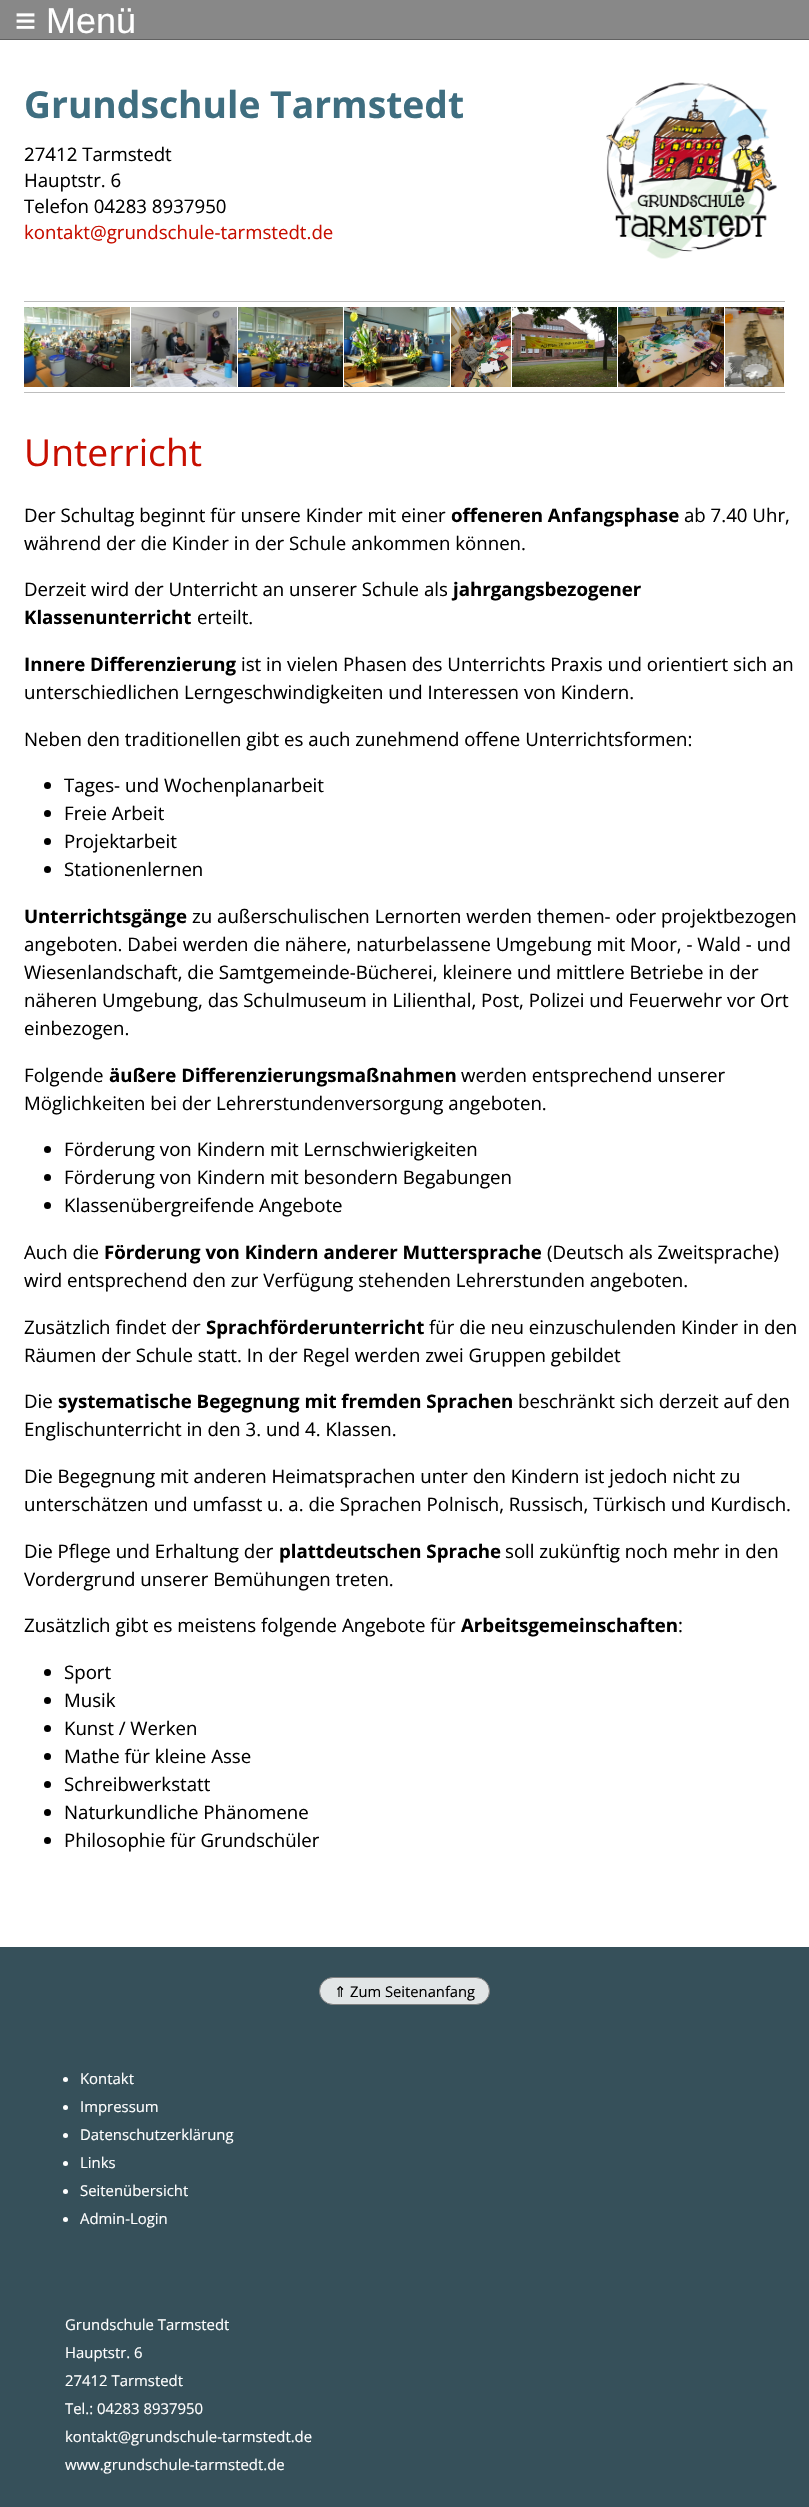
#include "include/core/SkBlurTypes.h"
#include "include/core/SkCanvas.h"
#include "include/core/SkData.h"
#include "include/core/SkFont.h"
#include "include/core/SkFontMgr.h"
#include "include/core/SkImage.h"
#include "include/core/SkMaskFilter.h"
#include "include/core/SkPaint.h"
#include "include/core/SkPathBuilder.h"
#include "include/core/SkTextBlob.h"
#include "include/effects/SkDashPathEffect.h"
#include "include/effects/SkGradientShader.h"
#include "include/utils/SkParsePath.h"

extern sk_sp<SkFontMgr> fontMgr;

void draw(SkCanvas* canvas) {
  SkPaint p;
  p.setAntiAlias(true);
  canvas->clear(SK_ColorWHITE);
  p.setColor(SkColorSetRGB(136, 136, 136));
  canvas->drawRect(SkRect::MakeLTRB(0, 0, 809, 39), p);
  p.setColor(SkColorSetRGB(97, 97, 97));
  canvas->drawRect(SkRect::MakeLTRB(0, 39, 809, 40), p);
  canvas->drawImageRect(SkImages::DeferredFromEncodedData(SkData::MakeFromFileName("images/1.png")), SkRect::MakeLTRB(606, 82, 777, 259), SkSamplingOptions());
  p.setColor(SkColorSetRGB(189, 189, 189));
  canvas->drawRect(SkRect::MakeLTRB(24, 301, 785, 302), p);
  canvas->drawRect(SkRect::MakeLTRB(24, 392, 785, 393), p);
  canvas->drawImageRect(SkImages::DeferredFromEncodedData(SkData::MakeFromFileName("images/2.png")), SkRect::MakeLTRB(24, 307, 130, 387), SkSamplingOptions());
  canvas->drawImageRect(SkImages::DeferredFromEncodedData(SkData::MakeFromFileName("images/3.png")), SkRect::MakeLTRB(131, 307, 237, 387), SkSamplingOptions());
  canvas->drawImageRect(SkImages::DeferredFromEncodedData(SkData::MakeFromFileName("images/4.png")), SkRect::MakeLTRB(238, 307, 343, 387), SkSamplingOptions());
  canvas->drawImageRect(SkImages::DeferredFromEncodedData(SkData::MakeFromFileName("images/5.png")), SkRect::MakeLTRB(344, 307, 450, 387), SkSamplingOptions());
  canvas->drawImageRect(SkImages::DeferredFromEncodedData(SkData::MakeFromFileName("images/6.png")), SkRect::MakeLTRB(451, 307, 511, 387), SkSamplingOptions());
  canvas->drawImageRect(SkImages::DeferredFromEncodedData(SkData::MakeFromFileName("images/7.png")), SkRect::MakeLTRB(512, 307, 617, 387), SkSamplingOptions());
  canvas->drawImageRect(SkImages::DeferredFromEncodedData(SkData::MakeFromFileName("images/8.png")), SkRect::MakeLTRB(618, 307, 724, 387), SkSamplingOptions());
  canvas->drawImageRect(SkImages::DeferredFromEncodedData(SkData::MakeFromFileName("images/9.png")), SkRect::MakeLTRB(725, 307, 784, 387), SkSamplingOptions());
  p.setColor(SK_ColorBLACK);
  canvas->drawCircle(47.5f, 785.5f, 3.5f, p);
  canvas->drawCircle(47.5f, 813.5f, 3.5f, p);
  canvas->drawCircle(47.5f, 841.5f, 3.5f, p);
  canvas->drawCircle(47.5f, 869.5f, 3.5f, p);
  canvas->drawCircle(47.5f, 1149.5f, 3.5f, p);
  canvas->drawCircle(47.5f, 1177.5f, 3.5f, p);
  canvas->drawCircle(47.5f, 1205.5f, 3.5f, p);
  canvas->drawCircle(47.5f, 1672.5f, 3.5f, p);
  canvas->drawCircle(47.5f, 1700.5f, 3.5f, p);
  canvas->drawCircle(47.5f, 1728.5f, 3.5f, p);
  canvas->drawCircle(47.5f, 1756.5f, 3.5f, p);
  canvas->drawCircle(47.5f, 1784.5f, 3.5f, p);
  canvas->drawCircle(47.5f, 1812.5f, 3.5f, p);
  canvas->drawCircle(47.5f, 1840.5f, 3.5f, p);
  p.setColor(SkColorSetRGB(54, 80, 90));
  canvas->drawRect(SkRect::MakeLTRB(0, 1947, 809, 2507), p);
  p.setColor(SkColorSetRGB(225, 229, 230));
  canvas->drawRoundRect(SkRect::MakeLTRB(319.5f, 1977.5f, 489.5f, 2004.5f), 13.5f, 13.5f, p);
  p.setStyle(SkPaint::kStroke_Style);
  p.setStrokeWidth(1);
  p.setColor(SkColorSetRGB(128, 128, 128));
  canvas->drawRoundRect(SkRect::MakeLTRB(319.5f, 1977.5f, 489.5f, 2004.5f), 13.5f, 13.5f, p);
  p.setStyle(SkPaint::kFill_Style);
  p.setColor(SK_ColorWHITE);
  canvas->drawCircle(65.5f, 2079.5f, 2.5f, p);
  canvas->drawCircle(65.5f, 2107.5f, 2.5f, p);
  canvas->drawCircle(65.5f, 2135.5f, 2.5f, p);
  canvas->drawCircle(65.5f, 2163.5f, 2.5f, p);
  canvas->drawCircle(65.5f, 2191.5f, 2.5f, p);
  canvas->drawCircle(65.5f, 2219.5f, 2.5f, p);
  SkFont font1(fontMgr->matchFamilyStyle("Liberation Sans", SkFontStyle::Normal()), 36);
  font1.setSubpixel(true);
  canvas->drawString("≡ Menü", 15, 33, font1, p);
  SkFont font2(fontMgr->matchFamilyStyle("Open Sans", SkFontStyle::Bold()), 37.25f);
  font2.setSubpixel(true);
  p.setColor(SkColorSetRGB(63, 110, 128));
  canvas->drawString("Grundschule Tarmstedt", 24, 118, font2, p);
  SkFont font3(fontMgr->matchFamilyStyle("Open Sans", SkFontStyle::Normal()), 18.65f);
  font3.setSubpixel(true);
  p.setColor(SK_ColorBLACK);
  canvas->drawString("27412 Tarmstedt", 24, 161, font3, p);
  canvas->drawString("Hauptstr. 6", 24, 187, font3, p);
  canvas->drawString("Telefon 04283 8937950", 24, 213, font3, p);
  p.setColor(SkColorSetRGB(199, 14, 0));
  canvas->drawString("kontakt@grundschule-tarmstedt.de", 24, 239, font3, p);
  SkFont font4(fontMgr->matchFamilyStyle("Open Sans", SkFontStyle::Normal()), 37.25f);
  font4.setSubpixel(true);
  canvas->drawString("Unterricht", 24, 466, font4, p);
  p.setColor(SK_ColorBLACK);
  canvas->drawString("Der Schultag beginnt für unsere Kinder mit einer", 24, 522, font3, p);
  SkFont font5(fontMgr->matchFamilyStyle("Open Sans", SkFontStyle::Bold()), 18.65f);
  font5.setSubpixel(true);
  canvas->drawString("offeneren Anfangsphase", 451, 522, font5, p);
  canvas->drawString("ab 7.40 Uhr,", 684, 522, font3, p);
  canvas->drawString("während der die Kinder in der Schule ankommen können.", 24, 550, font3, p);
  canvas->drawString("Derzeit wird der Unterricht an unserer Schule als", 24, 596, font3, p);
  canvas->drawString("jahrgangsbezogener", 453, 596, font5, p);
  canvas->drawString("Klassenunterricht", 24, 624, font5, p);
  canvas->drawString("erteilt.", 197, 624, font3, p);
  canvas->drawString("Innere Differenzierung", 24, 671, font5, p);
  canvas->drawString("ist in vielen Phasen des Unterrichts Praxis und orientiert sich an", 241, 671, font3, p);
  canvas->drawString("unterschiedlichen Lerngeschwindigkeiten und Interessen von Kindern.", 24, 699, font3, p);
  canvas->drawString("Neben den traditionellen gibt es auch zunehmend offene Unterrichtsformen:", 24, 746, font3, p);
  canvas->drawString("Tages- und Wochenplanarbeit", 64, 792, font3, p);
  canvas->drawString("Freie Arbeit", 64, 820, font3, p);
  canvas->drawString("Projektarbeit", 64, 848, font3, p);
  canvas->drawString("Stationenlernen", 64, 876, font3, p);
  canvas->drawString("Unterrichtsgänge", 24, 923, font5, p);
  canvas->drawString("zu außerschulischen Lernorten werden themen- oder projektbezogen", 192, 923, font3, p);
  canvas->drawString("angeboten. Dabei werden die nähere, naturbelassene Umgebung mit Moor, - Wald - und", 24, 951, font3, p);
  canvas->drawString("Wiesenlandschaft, die Samtgemeinde-Bücherei, kleinere und mittlere Betriebe in der", 24, 979, font3, p);
  canvas->drawString("näheren Umgebung, das Schulmuseum in Lilienthal, Post, Polizei und Feuerwehr vor Ort", 24, 1007, font3, p);
  canvas->drawString("einbezogen.", 24, 1035, font3, p);
  canvas->drawString("Folgende", 24, 1082, font3, p);
  canvas->drawString("äußere Differenzierungsmaßnahmen", 109, 1082, font5, p);
  canvas->drawString("werden entsprechend unserer", 461, 1082, font3, p);
  canvas->drawString("Möglichkeiten bei der Lehrerstundenversorgung angeboten.", 24, 1110, font3, p);
  canvas->drawString("Förderung von Kindern mit Lernschwierigkeiten", 64, 1156, font3, p);
  canvas->drawString("Förderung von Kindern mit besondern Begabungen", 64, 1184, font3, p);
  canvas->drawString("Klassenübergreifende Angebote", 64, 1212, font3, p);
  canvas->drawString("Auch die", 24, 1259, font3, p);
  canvas->drawString("Förderung von Kindern anderer Muttersprache", 104, 1259, font5, p);
  canvas->drawString("(Deutsch als Zweitsprache)", 547, 1259, font3, p);
  canvas->drawString("wird entsprechend den zur Verfügung stehenden Lehrerstunden angeboten.", 24, 1287, font3, p);
  canvas->drawString("Zusätzlich findet der", 24, 1334, font3, p);
  canvas->drawString("Sprachförderunterricht", 206, 1334, font5, p);
  canvas->drawString("für die neu einzuschulenden Kinder in den", 429, 1334, font3, p);
  canvas->drawString("Räumen der Schule statt. In der Regel werden zwei Gruppen gebildet", 24, 1362, font3, p);
  canvas->drawString("Die", 24, 1408, font3, p);
  canvas->drawString("systematische Begegnung mit fremden Sprachen", 58, 1408, font5, p);
  canvas->drawString("beschränkt sich derzeit auf den", 518, 1408, font3, p);
  canvas->drawString("Englischunterricht in den 3. und 4. Klassen.", 24, 1436, font3, p);
  canvas->drawString("Die Begegnung mit anderen Heimatsprachen unter den Kindern ist jedoch nicht zu", 24, 1483, font3, p);
  canvas->drawString("unterschätzen und umfasst u. a. die Sprachen Polnisch, Russisch, Türkisch und Kurdisch.", 24, 1511, font3, p);
  canvas->drawString("Die Pflege und Erhaltung der", 24, 1558, font3, p);
  canvas->drawString("plattdeutschen Sprache", 279, 1558, font5, p);
  canvas->drawString("soll zukünftig noch mehr in den", 505, 1558, font3, p);
  canvas->drawString("Vordergrund unserer Bemühungen treten.", 24, 1586, font3, p);
  canvas->drawString("Zusätzlich gibt es meistens folgende Angebote für", 24, 1632, font3, p);
  canvas->drawString("Arbeitsgemeinschaften", 461, 1632, font5, p);
  canvas->drawString(":", 678, 1632, font3, p);
  canvas->drawString("Sport", 64, 1679, font3, p);
  canvas->drawString("Musik", 64, 1707, font3, p);
  canvas->drawString("Kunst / Werken", 64, 1735, font3, p);
  canvas->drawString("Mathe für kleine Asse", 64, 1763, font3, p);
  canvas->drawString("Schreibwerkstatt", 64, 1791, font3, p);
  canvas->drawString("Naturkundliche Phänomene", 64, 1819, font3, p);
  canvas->drawString("Philosophie für Grundschüler", 64, 1847, font3, p);
  SkFont font6(fontMgr->matchFamilyStyle("DejaVu Sans", SkFontStyle::Normal()), 14.75f);
  font6.setSubpixel(true);
  canvas->drawString("⇑", 334, 1997, font6, p);
  SkFont font7(fontMgr->matchFamilyStyle("Open Sans", SkFontStyle::Normal()), 14.75f);
  font7.setSubpixel(true);
  canvas->drawString("Zum Seitenanfang", 350, 1997, font7, p);
  SkFont font8(fontMgr->matchFamilyStyle("Open Sans", SkFontStyle::Normal()), 14.9f);
  font8.setSubpixel(true);
  p.setColor(SK_ColorWHITE);
  canvas->drawString("Kontakt", 80, 2084, font8, p);
  canvas->drawString("Impressum", 80, 2112, font8, p);
  canvas->drawString("Datenschutzerklärung", 80, 2140, font8, p);
  canvas->drawString("Links", 80, 2168, font8, p);
  canvas->drawString("Seitenübersicht", 80, 2196, font8, p);
  canvas->drawString("Admin-Login", 80, 2224, font8, p);
  canvas->drawString("Grundschule Tarmstedt", 65, 2330, font8, p);
  canvas->drawString("Hauptstr. 6", 65, 2358, font8, p);
  canvas->drawString("27412 Tarmstedt", 65, 2386, font8, p);
  canvas->drawString("Tel.: 04283 8937950", 65, 2414, font8, p);
  canvas->drawString("kontakt@grundschule-tarmstedt.de", 65, 2442, font8, p);
  canvas->drawString("www.grundschule-tarmstedt.de", 65, 2470, font8, p);
}
